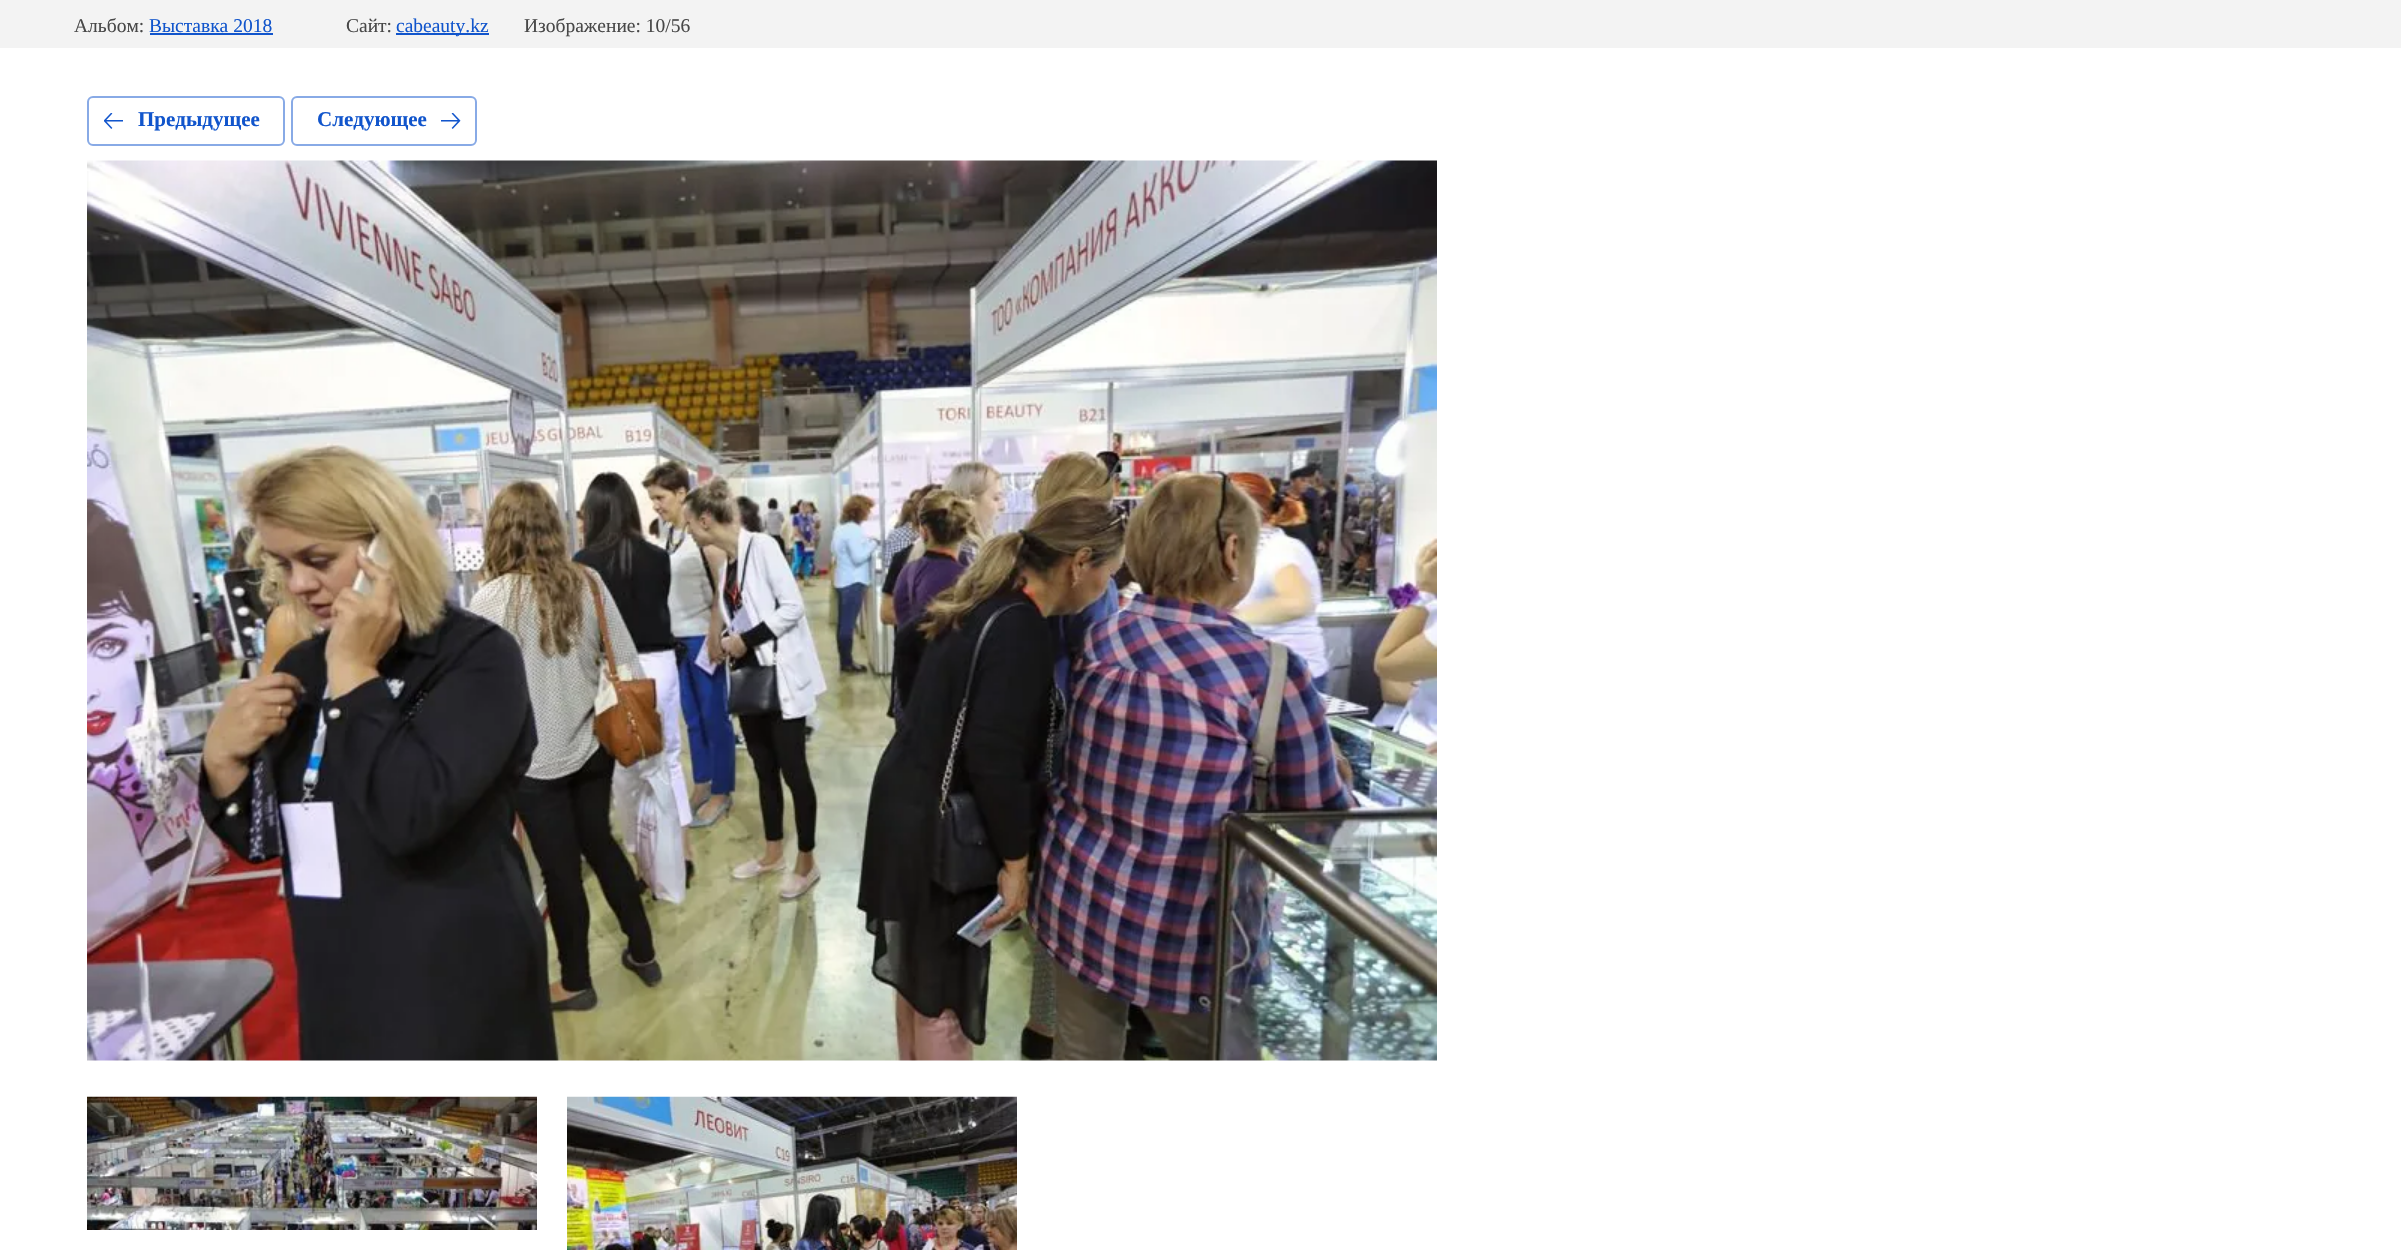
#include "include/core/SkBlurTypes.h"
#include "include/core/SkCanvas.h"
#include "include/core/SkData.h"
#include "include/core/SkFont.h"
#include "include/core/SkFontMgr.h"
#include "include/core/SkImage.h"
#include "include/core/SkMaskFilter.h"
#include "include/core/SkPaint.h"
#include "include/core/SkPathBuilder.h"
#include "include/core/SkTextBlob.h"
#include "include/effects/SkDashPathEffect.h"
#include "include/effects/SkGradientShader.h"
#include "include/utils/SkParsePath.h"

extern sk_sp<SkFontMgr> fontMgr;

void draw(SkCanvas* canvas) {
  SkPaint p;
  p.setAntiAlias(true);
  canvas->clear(SK_ColorWHITE);
  p.setColor(SkColorSetRGB(243, 243, 243));
  canvas->drawRect(SkRect::MakeLTRB(0, 0, 2401, 48), p);
  p.setColor(SkColorSetRGB(17, 85, 204));
  canvas->drawRect(SkRect::MakeLTRB(150, 33, 273, 35), p);
  canvas->drawRect(SkRect::MakeLTRB(396, 33, 489, 35), p);
  p.setStyle(SkPaint::kStroke_Style);
  p.setStrokeWidth(2);
  p.setColor(SkColorSetRGB(136, 170, 230));
  canvas->drawRoundRect(SkRect::MakeLTRB(88, 97, 284, 145), 5, 5, p);
  canvas->drawImageRect(SkImages::DeferredFromEncodedData(SkData::MakeFromFileName("images/1.png")), SkRect::MakeLTRB(104, 113, 123, 129), SkSamplingOptions());
  canvas->drawRoundRect(SkRect::MakeLTRB(292, 97, 476, 145), 5, 5, p);
  canvas->drawImageRect(SkImages::DeferredFromEncodedData(SkData::MakeFromFileName("images/2.png")), SkRect::MakeLTRB(441, 113, 461, 129), SkSamplingOptions());
  canvas->drawImageRect(SkImages::DeferredFromEncodedData(SkData::MakeFromFileName("images/3.png")), SkRect::MakeLTRB(87, 160, 1437, 1061), SkSamplingOptions());
  canvas->drawImageRect(SkImages::DeferredFromEncodedData(SkData::MakeFromFileName("images/4.png")), SkRect::MakeLTRB(87, 1096, 537, 1230), SkSamplingOptions());
  canvas->drawImageRect(SkImages::DeferredFromEncodedData(SkData::MakeFromFileName("images/5.png")), SkRect::MakeLTRB(567, 1096, 1017, 1250), SkSamplingOptions());
  SkFont font1(fontMgr->matchFamilyStyle("Liberation Serif", SkFontStyle::Normal()), 19.5f);
  font1.setSubpixel(true);
  p.setStyle(SkPaint::kFill_Style);
  p.setColor(SkColorSetRGB(72, 72, 72));
  canvas->drawString("Альбом:", 74, 32, font1, p);
  p.setColor(SkColorSetRGB(17, 85, 204));
  canvas->drawString("Выставка 2018", 149, 32, font1, p);
  p.setColor(SkColorSetRGB(72, 72, 72));
  canvas->drawString("Сайт:", 346, 32, font1, p);
  p.setColor(SkColorSetRGB(17, 85, 204));
  canvas->drawString("cabeauty.kz", 396, 32, font1, p);
  p.setColor(SkColorSetRGB(72, 72, 72));
  canvas->drawString("Изображение: 10/56", 524, 32, font1, p);
  SkFont font2(fontMgr->matchFamilyStyle("Liberation Serif", SkFontStyle::Bold()), 21);
  font2.setSubpixel(true);
  p.setColor(SkColorSetRGB(17, 85, 204));
  canvas->drawString("Предыдущее", 138, 126, font2, p);
  canvas->drawString("Следующее", 317, 126, font2, p);
}
